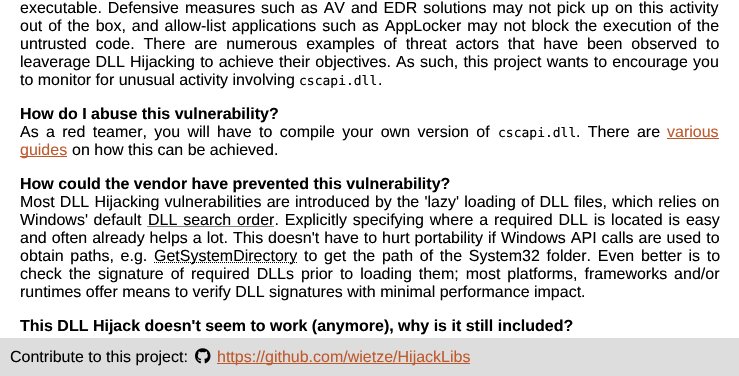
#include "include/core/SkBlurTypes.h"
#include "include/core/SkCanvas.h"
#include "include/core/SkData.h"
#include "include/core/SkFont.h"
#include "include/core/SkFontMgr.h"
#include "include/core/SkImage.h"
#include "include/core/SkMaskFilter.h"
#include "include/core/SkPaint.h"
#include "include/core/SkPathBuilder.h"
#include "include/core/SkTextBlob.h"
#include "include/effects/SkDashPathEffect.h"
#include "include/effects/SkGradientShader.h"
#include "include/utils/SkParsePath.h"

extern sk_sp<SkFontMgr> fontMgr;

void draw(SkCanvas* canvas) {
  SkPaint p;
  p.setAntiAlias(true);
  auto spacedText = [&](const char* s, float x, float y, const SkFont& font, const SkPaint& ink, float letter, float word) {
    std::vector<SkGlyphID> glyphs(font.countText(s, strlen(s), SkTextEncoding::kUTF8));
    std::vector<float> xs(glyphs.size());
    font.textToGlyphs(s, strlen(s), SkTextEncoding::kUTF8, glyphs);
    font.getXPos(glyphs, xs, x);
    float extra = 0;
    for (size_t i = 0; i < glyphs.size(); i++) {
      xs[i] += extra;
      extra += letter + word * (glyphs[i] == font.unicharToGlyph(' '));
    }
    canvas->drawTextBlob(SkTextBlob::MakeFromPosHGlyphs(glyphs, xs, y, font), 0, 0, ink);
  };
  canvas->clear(SK_ColorWHITE);
  p.setColor(SkColorSetRGB(191, 89, 43));
  canvas->drawRect(SkRect::MakeLTRB(667, 138, 719, 139), p);
  canvas->drawRect(SkRect::MakeLTRB(20, 156, 67, 157), p);
  p.setStyle(SkPaint::kStroke_Style);
  p.setStrokeWidth(1);
  p.setColor(SK_ColorBLACK);
  p.setPathEffect(SkDashPathEffect::Make({{1, 1}}, 0));
  canvas->drawPath(SkPathBuilder().moveTo(147.5f, 226.5f).lineTo(274, 226.5f).detach(), p);
  p.setPathEffect(nullptr);
  p.setPathEffect(SkDashPathEffect::Make({{1, 1}}, 0));
  canvas->drawPath(SkPathBuilder().moveTo(154, 262.5f).lineTo(297, 262.5f).detach(), p);
  p.setPathEffect(nullptr);
  p.setStyle(SkPaint::kFill_Style);
  p.setColor(SkColorSetRGB(221, 221, 221));
  canvas->drawRect(SkRect::MakeLTRB(0, 338, 739, 376), p);
  canvas->drawImageRect(SkImages::DeferredFromEncodedData(SkData::MakeFromFileName("images/1.png")), SkRect::MakeLTRB(195, 348, 211, 364), SkSamplingOptions());
  p.setColor(SkColorSetRGB(191, 89, 43));
  canvas->drawRect(SkRect::MakeLTRB(217, 363, 470, 364), p);
  SkFont font1(fontMgr->matchFamilyStyle("Liberation Sans", SkFontStyle::Normal()), 16);
  font1.setSubpixel(true);
  p.setColor(SK_ColorBLACK);
  spacedText("executable. Defensive measures such as AV and EDR solutions may not pick up on this activity", 20, 13, font1, p, 0, 1.5f);
  spacedText("out of the box, and allow-list applications such as AppLocker may not block the execution of the", 20, 31, font1, p, 0, 1.5f);
  spacedText("untrusted code. There are numerous examples of threat actors that have been observed to", 20, 49, font1, p, 0, 4.4f);
  spacedText("leaverage DLL Hijacking to achieve their objectives. As such, this project wants to encourage you", 20, 67, font1, p, 0, 0.75f);
  canvas->drawString("to monitor for unusual activity involving", 20, 85, font1, p);
  SkFont font2(fontMgr->matchFamilyStyle("DejaVu Sans Mono", SkFontStyle::Normal()), 13);
  font2.setSubpixel(true);
  canvas->drawString("cscapi.dll", 299, 85, font2, p);
  canvas->drawString(".", 378, 85, font1, p);
  SkFont font3(fontMgr->matchFamilyStyle("Liberation Sans", SkFontStyle::Bold()), 16);
  font3.setSubpixel(true);
  canvas->drawString("How do I abuse this vulnerability?", 20, 119, font3, p);
  spacedText("As a red teamer, you will have to compile your own version of", 20, 137, font1, p, 0, 2.9f);
  canvas->drawString("cscapi.dll", 498, 137, font2, p);
  spacedText(". There are", 576, 137, font1, p, 0, 2.9f);
  p.setColor(SkColorSetRGB(191, 89, 43));
  canvas->drawString("various", 667, 137, font1, p);
  canvas->drawString("guides", 20, 155, font1, p);
  p.setColor(SK_ColorBLACK);
  canvas->drawString("on how this can be achieved.", 72, 155, font1, p);
  canvas->drawString("How could the vendor have prevented this vulnerability?", 20, 189, font3, p);
  spacedText("Most DLL Hijacking vulnerabilities are introduced by the 'lazy' loading of DLL files, which relies on", 20, 207, font1, p, 0, 0.75f);
  spacedText("Windows' default", 20, 225, font1, p, 0, 1);
  spacedText("DLL search order. Explicitly specifying where a required DLL is located is easy", 148, 225, font1, p, 0, 1.4f);
  spacedText("and often already helps a lot. This doesn't have to hurt portability if Windows API calls are used to", 20, 243, font1, p, 0, 0.5f);
  spacedText("obtain paths, e.g.", 20, 261, font1, p, 0, 2.25f);
  canvas->drawString("GetSystemDirectory", 154, 261, font1, p);
  spacedText("to get the path of the System32 folder. Even better is to", 304, 261, font1, p, 0, 2.25f);
  spacedText("check the signature of required DLLs prior to loading them; most platforms, frameworks and/or", 20, 279, font1, p, 0, 2.5f);
  canvas->drawString("runtimes offer means to verify DLL signatures with minimal performance impact.", 20, 297, font1, p);
  canvas->drawString("This DLL Hijack doesn't seem to work (anymore), why is it still included?", 20, 331, font3, p);
  canvas->drawString("Contribute to this project:", 10, 362, font1, p);
  p.setColor(SkColorSetRGB(191, 89, 43));
  canvas->drawString("https://github.com/wietze/HijackLibs", 217, 362, font1, p);
}
